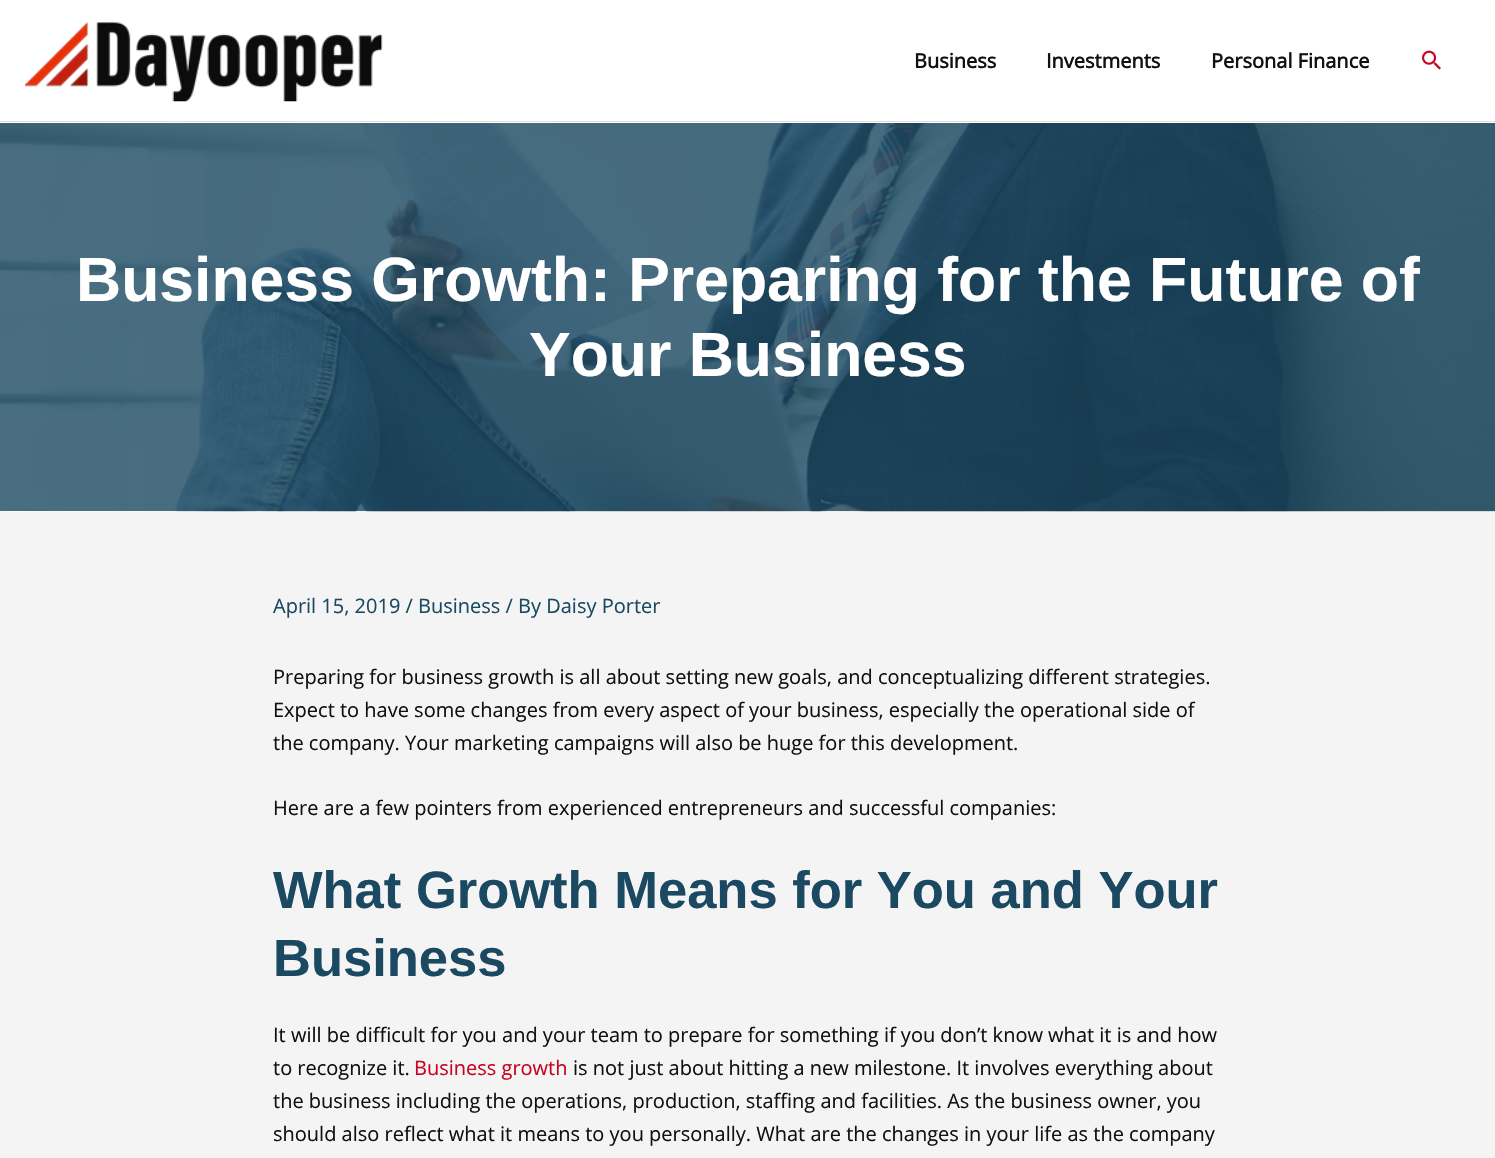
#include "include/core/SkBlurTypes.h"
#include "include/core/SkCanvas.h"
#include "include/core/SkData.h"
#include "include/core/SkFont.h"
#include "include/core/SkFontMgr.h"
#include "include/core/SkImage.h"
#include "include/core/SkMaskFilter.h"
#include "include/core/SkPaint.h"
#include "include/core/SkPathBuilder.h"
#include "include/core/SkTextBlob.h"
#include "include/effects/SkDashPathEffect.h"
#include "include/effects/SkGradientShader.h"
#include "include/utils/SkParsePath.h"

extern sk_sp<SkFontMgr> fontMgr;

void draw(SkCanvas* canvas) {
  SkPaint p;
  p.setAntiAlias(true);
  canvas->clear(SkColorSetRGB(244, 244, 244));
  p.setColor(SK_ColorWHITE);
  canvas->drawRect(SkRect::MakeLTRB(0, 0, 1495, 123), p);
  p.setColor(SkColorSetRGB(221, 221, 221));
  canvas->drawRect(SkRect::MakeLTRB(0, 121, 1495, 122), p);
  canvas->drawImageRect(SkImages::DeferredFromEncodedData(SkData::MakeFromFileName("images/1.png")), SkRect::MakeLTRB(25, 22, 383, 102), SkSamplingOptions());
  canvas->drawImageRect(SkImages::DeferredFromEncodedData(SkData::MakeFromFileName("images/2.png")), SkRect::MakeLTRB(1422, 50, 1441, 70), SkSamplingOptions());
  canvas->drawImageRect(SkImages::DeferredFromEncodedData(SkData::MakeFromFileName("images/3.png")), SkRect::MakeLTRB(0, 123, 1495, 512), SkSamplingOptions());
  SkFont font1(fontMgr->matchFamilyStyle("Open Sans", SkFontStyle::Bold()), 20);
  font1.setSubpixel(true);
  p.setColor(SkColorSetRGB(17, 17, 17));
  canvas->drawString("Business", 914, 68, font1, p);
  canvas->drawString("Investments", 1046, 68, font1, p);
  canvas->drawString("Personal Finance", 1211, 68, font1, p);
  SkFont font2(fontMgr->matchFamilyStyle("Liberation Sans", SkFontStyle::Bold()), 62.5f);
  font2.setSubpixel(true);
  p.setColor(SK_ColorWHITE);
  canvas->drawString("Business Growth: Preparing for the Future of", 76, 301, font2, p);
  canvas->drawString("Your Business", 529, 376, font2, p);
  SkFont font3(fontMgr->matchFamilyStyle("Open Sans", SkFontStyle::Normal()), 20);
  font3.setSubpixel(true);
  p.setColor(SkColorSetRGB(27, 73, 98));
  canvas->drawString("April 15, 2019 / Business / By Daisy Porter", 273, 613, font3, p);
  p.setColor(SkColorSetRGB(17, 17, 17));
  canvas->drawString("Preparing for business growth is all about setting new goals, and conceptualizing different strategies.", 273, 684, font3, p);
  canvas->drawString("Expect to have some changes from every aspect of your business, especially the operational side of", 273, 717, font3, p);
  canvas->drawString("the company. Your marketing campaigns will also be huge for this development.", 273, 750, font3, p);
  canvas->drawString("Here are a few pointers from experienced entrepreneurs and successful companies:", 273, 815, font3, p);
  SkFont font4(fontMgr->matchFamilyStyle("Liberation Sans", SkFontStyle::Bold()), 52.5f);
  font4.setSubpixel(true);
  p.setColor(SkColorSetRGB(27, 73, 98));
  canvas->drawString("What Growth Means for You and Your", 273, 908, font4, p);
  canvas->drawString("Business", 273, 976, font4, p);
  p.setColor(SkColorSetRGB(17, 17, 17));
  canvas->drawString("It will be difficult for you and your team to prepare for something if you don’t know what it is and how", 273, 1042, font3, p);
  canvas->drawString("to recognize it.", 273, 1075, font3, p);
  p.setColor(SkColorSetRGB(200, 4, 33));
  canvas->drawString("Business growth", 414, 1075, font3, p);
  p.setColor(SkColorSetRGB(17, 17, 17));
  canvas->drawString("is not just about hitting a new milestone. It involves everything about", 573, 1075, font3, p);
  canvas->drawString("the business including the operations, production, staffing and facilities. As the business owner, you", 273, 1108, font3, p);
  canvas->drawString("should also reflect what it means to you personally. What are the changes in your life as the company", 273, 1141, font3, p);
}
